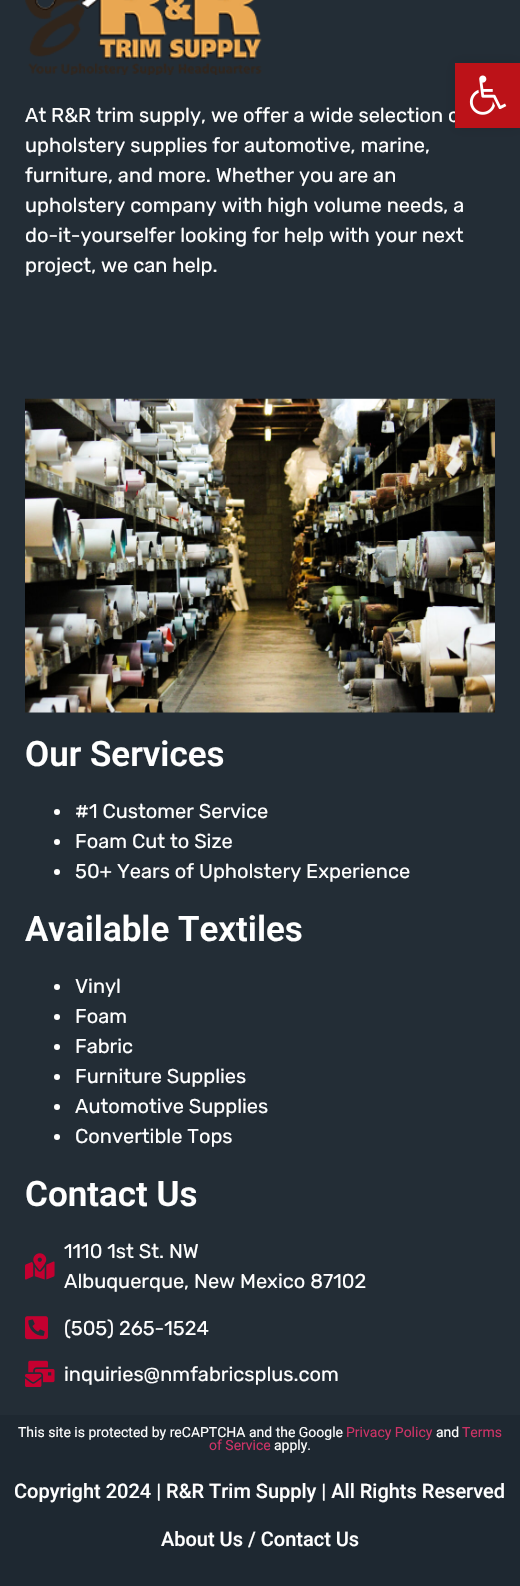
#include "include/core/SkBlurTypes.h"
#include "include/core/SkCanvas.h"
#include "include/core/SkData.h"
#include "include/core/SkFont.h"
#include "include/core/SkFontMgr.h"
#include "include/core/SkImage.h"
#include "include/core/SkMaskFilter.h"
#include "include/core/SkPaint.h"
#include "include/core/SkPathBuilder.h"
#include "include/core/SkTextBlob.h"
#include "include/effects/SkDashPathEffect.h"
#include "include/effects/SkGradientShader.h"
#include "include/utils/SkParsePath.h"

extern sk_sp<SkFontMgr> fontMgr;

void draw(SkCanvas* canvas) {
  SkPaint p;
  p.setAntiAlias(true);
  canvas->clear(SkColorSetRGB(35, 45, 54));
  p.setColor(SkColorSetARGB(26, 0, 0, 0));
  p.setMaskFilter(SkMaskFilter::MakeBlur(kNormal_SkBlurStyle, 6));
  canvas->drawRect(SkRect::MakeLTRB(455, 63, 520, 128), p);
  p.setMaskFilter(nullptr);
  canvas->drawImageRect(SkImages::DeferredFromEncodedData(SkData::MakeFromFileName("images/2.png")), SkRect::MakeLTRB(25, 0, 262, 75), SkSamplingOptions());
  canvas->drawImageRect(SkImages::DeferredFromEncodedData(SkData::MakeFromFileName("images/3.png")), SkRect::MakeLTRB(25, 398, 495, 713), SkSamplingOptions());
  p.setColor(SK_ColorWHITE);
  canvas->drawCircle(57, 812, 3, p);
  canvas->drawCircle(57, 842, 3, p);
  canvas->drawCircle(57, 872, 3, p);
  canvas->drawCircle(57, 987, 3, p);
  canvas->drawCircle(57, 1017, 3, p);
  canvas->drawCircle(57, 1047, 3, p);
  canvas->drawCircle(57, 1077, 3, p);
  canvas->drawCircle(57, 1107, 3, p);
  canvas->drawCircle(57, 1137, 3, p);
  canvas->drawImageRect(SkImages::DeferredFromEncodedData(SkData::MakeFromFileName("images/4.png")), SkRect::MakeLTRB(25, 1253, 55, 1280), SkSamplingOptions());
  canvas->drawImageRect(SkImages::DeferredFromEncodedData(SkData::MakeFromFileName("images/5.png")), SkRect::MakeLTRB(25, 1316, 48, 1340), SkSamplingOptions());
  canvas->drawImageRect(SkImages::DeferredFromEncodedData(SkData::MakeFromFileName("images/6.png")), SkRect::MakeLTRB(25, 1360, 55, 1387), SkSamplingOptions());
  p.setColor(SkColorSetRGB(30, 40, 49));
  canvas->drawRect(SkRect::MakeLTRB(0, 1415, 520, 1586), p);
  SkFont font1(fontMgr->matchFamilyStyle("Rubik", SkFontStyle::Normal()), 20);
  font1.setSubpixel(true);
  p.setColor(SK_ColorWHITE);
  canvas->drawString("At R&R trim supply, we offer a wide selection o", 25, 122, font1, p);
  p.setColor(SkColorSetRGB(188, 18, 24));
  canvas->drawRect(SkRect::MakeLTRB(455, 63, 520, 128), p);
  canvas->drawImageRect(SkImages::DeferredFromEncodedData(SkData::MakeFromFileName("images/1.png")), SkRect::MakeLTRB(469, 75, 507, 115), SkSamplingOptions());
  p.setColor(SK_ColorWHITE);
  canvas->drawString("upholstery supplies for automotive, marine,", 25, 152, font1, p);
  canvas->drawString("furniture, and more. Whether you are an", 25, 182, font1, p);
  canvas->drawString("upholstery company with high volume needs, a", 25, 212, font1, p);
  canvas->drawString("do-it-yourselfer looking for help with your next", 25, 242, font1, p);
  canvas->drawString("project, we can help.", 25, 272, font1, p);
  SkFont font2(fontMgr->matchFamilyStyle("Roboto", SkFontStyle(600, SkFontStyle::kNormal_Width, SkFontStyle::kUpright_Slant)), 35);
  font2.setSubpixel(true);
  canvas->drawString("Our Services", 25, 766, font2, p);
  canvas->drawString("#1 Customer Service", 75, 818, font1, p);
  canvas->drawString("Foam Cut to Size", 75, 848, font1, p);
  canvas->drawString("50+ Years of Upholstery Experience", 75, 878, font1, p);
  canvas->drawString("Available Textiles", 25, 941, font2, p);
  canvas->drawString("Vinyl", 75, 993, font1, p);
  canvas->drawString("Foam", 75, 1023, font1, p);
  canvas->drawString("Fabric", 75, 1053, font1, p);
  canvas->drawString("Furniture Supplies", 75, 1083, font1, p);
  canvas->drawString("Automotive Supplies", 75, 1113, font1, p);
  canvas->drawString("Convertible Tops", 75, 1143, font1, p);
  canvas->drawString("Contact Us", 25, 1206, font2, p);
  canvas->drawString("1110 1st St. NW", 64, 1258, font1, p);
  canvas->drawString("Albuquerque, New Mexico 87102", 64, 1288, font1, p);
  canvas->drawString("(505) 265-1524", 64, 1335, font1, p);
  canvas->drawString("inquiries@nmfabricsplus.com", 64, 1381, font1, p);
  SkFont font3(fontMgr->matchFamilyStyle("Roboto", SkFontStyle::Normal()), 14);
  font3.setSubpixel(true);
  canvas->drawString("This site is protected by reCAPTCHA and the Google", 18, 1437, font3, p);
  p.setColor(SkColorSetRGB(204, 51, 102));
  canvas->drawString("Privacy Policy", 346, 1437, font3, p);
  p.setColor(SK_ColorWHITE);
  canvas->drawString("and", 436, 1437, font3, p);
  p.setColor(SkColorSetRGB(204, 51, 102));
  canvas->drawString("Terms", 462, 1437, font3, p);
  canvas->drawString("of Service", 209, 1450, font3, p);
  p.setColor(SK_ColorWHITE);
  canvas->drawString("apply.", 274, 1450, font3, p);
  SkFont font4(fontMgr->matchFamilyStyle("Roboto", SkFontStyle(500, SkFontStyle::kNormal_Width, SkFontStyle::kUpright_Slant)), 20);
  font4.setSubpixel(true);
  canvas->drawString("Copyright 2024 | R&R Trim Supply | All Rights Reserved", 14, 1498, font4, p);
  canvas->drawString("About Us / Contact Us", 161, 1546, font4, p);
}
